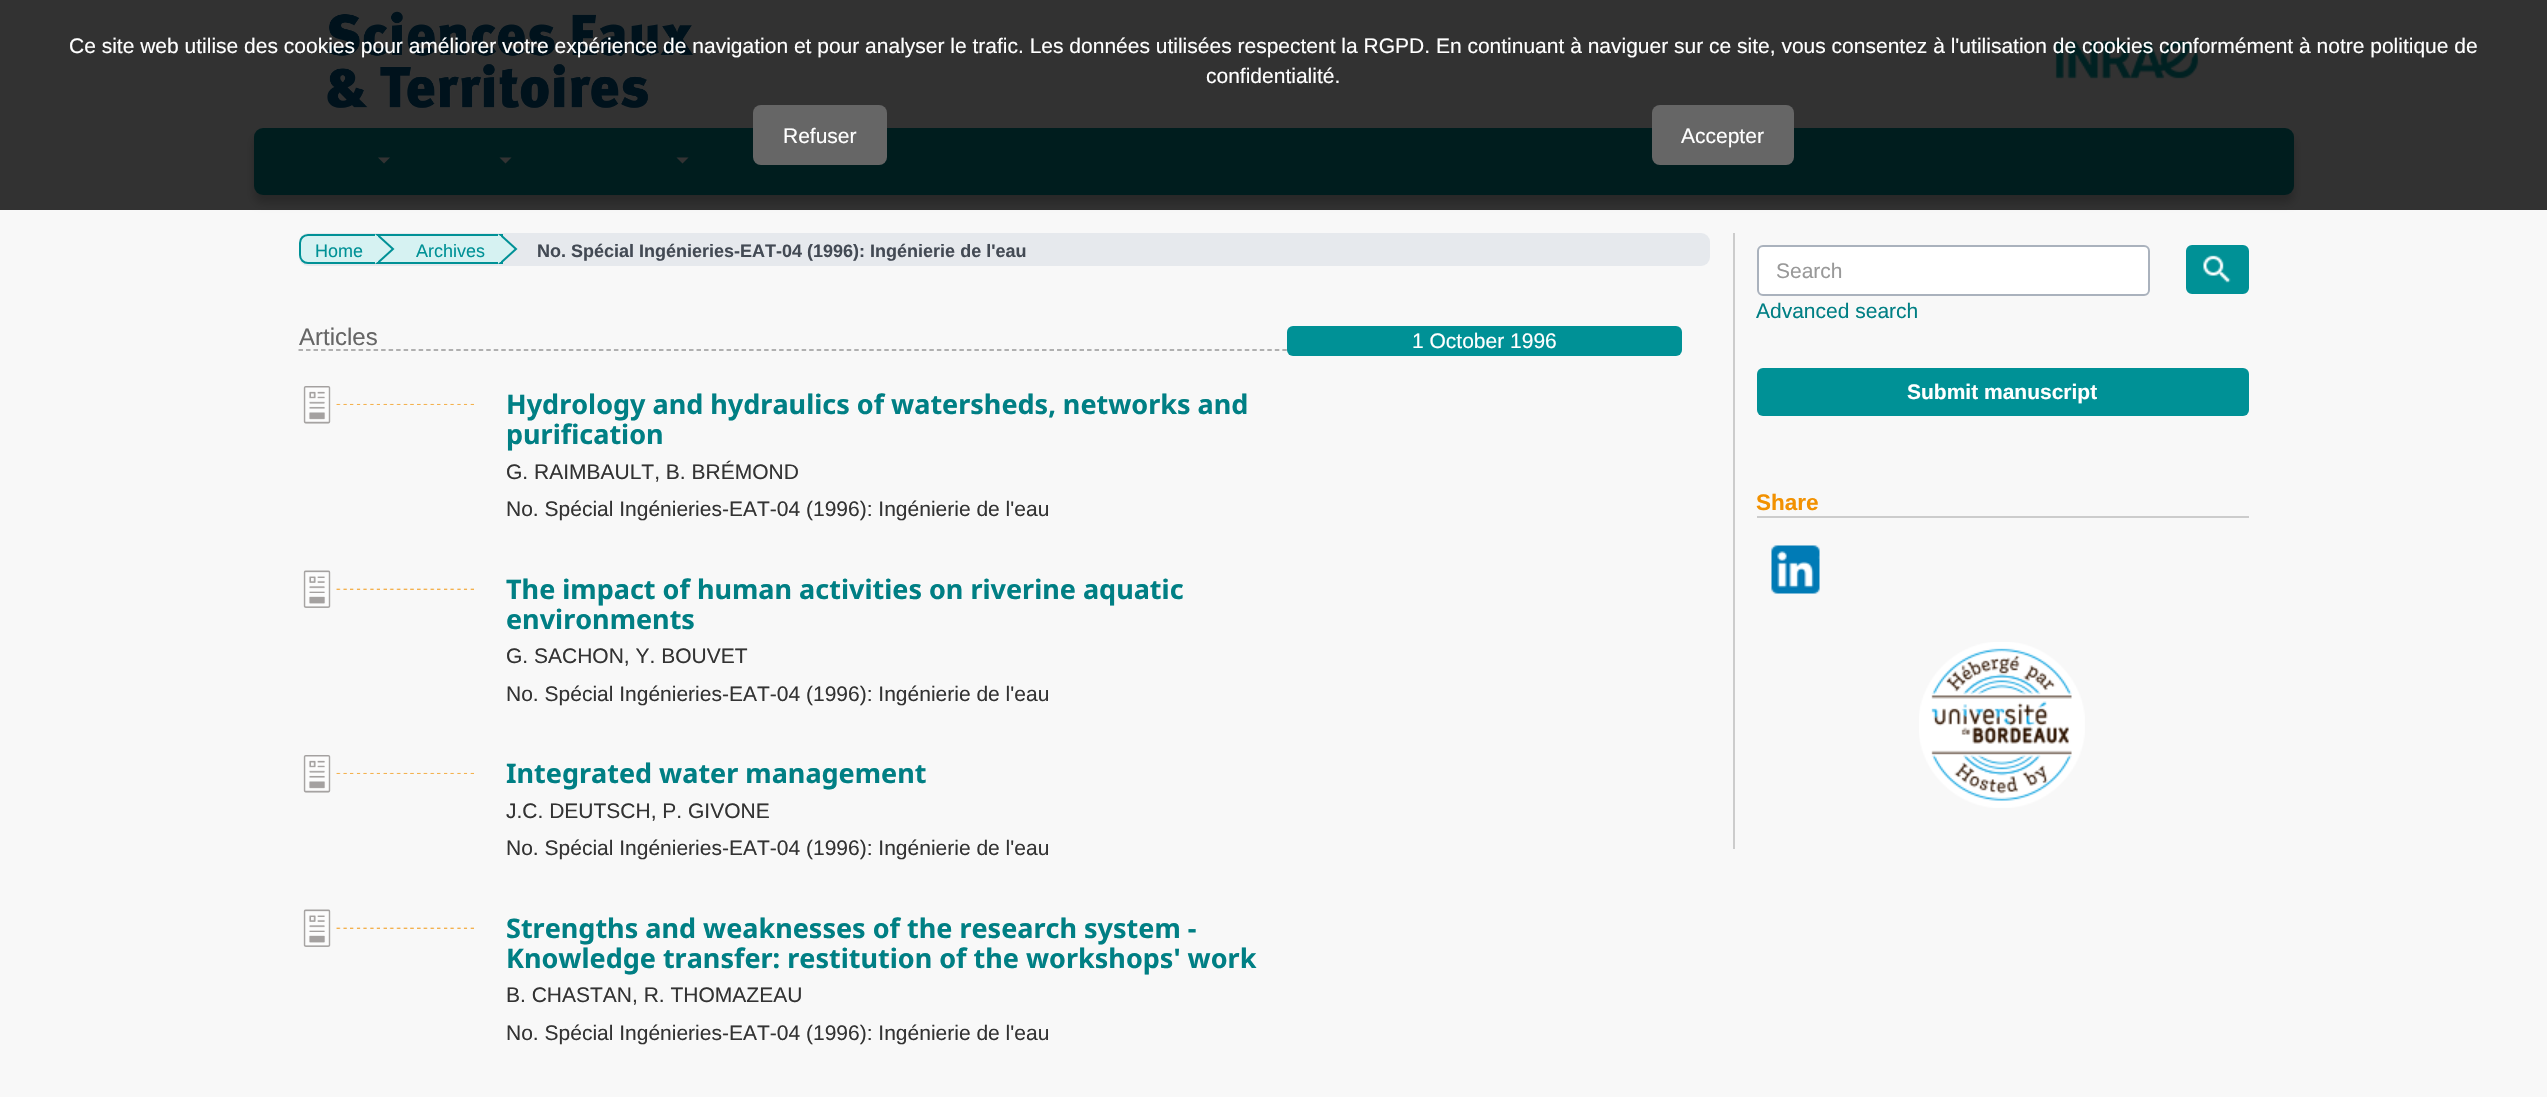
#include "include/core/SkBlurTypes.h"
#include "include/core/SkCanvas.h"
#include "include/core/SkData.h"
#include "include/core/SkFont.h"
#include "include/core/SkFontMgr.h"
#include "include/core/SkImage.h"
#include "include/core/SkMaskFilter.h"
#include "include/core/SkPaint.h"
#include "include/core/SkPathBuilder.h"
#include "include/core/SkTextBlob.h"
#include "include/effects/SkDashPathEffect.h"
#include "include/effects/SkGradientShader.h"
#include "include/utils/SkParsePath.h"

extern sk_sp<SkFontMgr> fontMgr;

void draw(SkCanvas* canvas) {
  SkPaint p;
  p.setAntiAlias(true);
  canvas->clear(SkColorSetRGB(248, 248, 248));
  canvas->drawImageRect(SkImages::DeferredFromEncodedData(SkData::MakeFromFileName("images/1.png")), SkRect::MakeLTRB(327, 11, 693, 109), SkSamplingOptions());
  canvas->drawImageRect(SkImages::DeferredFromEncodedData(SkData::MakeFromFileName("images/2.png")), SkRect::MakeLTRB(2055, 40, 2199, 79), SkSamplingOptions());
  p.setColor(SkColorSetARGB(51, 0, 0, 0));
  p.setMaskFilter(SkMaskFilter::MakeBlur(kNormal_SkBlurStyle, 4));
  canvas->drawRoundRect(SkRect::MakeLTRB(254, 135, 2294, 203), 9, 9, p);
  p.setMaskFilter(nullptr);
  p.setColor(SkColorSetRGB(0, 145, 150));
  canvas->drawRoundRect(SkRect::MakeLTRB(254, 128, 2294, 195), 9, 9, p);
  p.setColor(SK_ColorWHITE);
  canvas->drawPath(SkPathBuilder().moveTo(378, 157.5f).lineTo(390, 157.5f).lineTo(384, 163.5f).close().detach(), p);
  canvas->drawPath(SkPathBuilder().moveTo(499.5f, 157.5f).lineTo(511.5f, 157.5f).lineTo(505.5f, 163.5f).close().detach(), p);
  canvas->drawPath(SkPathBuilder().moveTo(676.5f, 157.5f).lineTo(688.5f, 157.5f).lineTo(682.5f, 163.5f).close().detach(), p);
  p.setColor(SkColorSetARGB(204, 0, 0, 0));
  canvas->drawRect(SkRect::MakeLTRB(0, 0, 2547, 210), p);
  p.setColor(SkColorSetRGB(102, 102, 102));
  canvas->drawRoundRect(SkRect::MakeLTRB(753, 105, 887, 165), 8, 8, p);
  canvas->drawRoundRect(SkRect::MakeLTRB(1652, 105, 1794, 165), 8, 8, p);
  p.setColor(SkColorSetRGB(230, 233, 237));
  canvas->drawRoundRect(SkRect::MakeLTRB(299, 233, 1710, 266), 9, 9, p);
  p.setColor(SkColorSetRGB(214, 242, 242));
  canvas->drawPath(SkPathBuilder().moveTo(308, 235).lineTo(379, 235).lineTo(379, 263).lineTo(308, 263).cubicTo(303.5f, 263, 300, 259.5f, 300, 255).lineTo(300, 243).cubicTo(300, 238.5f, 303.5f, 235, 308, 235).close().detach(), p);
  p.setStyle(SkPaint::kStroke_Style);
  p.setStrokeWidth(2);
  p.setColor(SkColorSetRGB(0, 145, 150));
  canvas->drawPath(SkPathBuilder().moveTo(308, 235).lineTo(379, 235).lineTo(379, 263).lineTo(308, 263).cubicTo(303.5f, 263, 300, 259.5f, 300, 255).lineTo(300, 243).cubicTo(300, 238.5f, 303.5f, 235, 308, 235).close().detach(), p);
  p.setStyle(SkPaint::kFill_Style);
  p.setColor(SkColorSetRGB(214, 242, 242));
  canvas->drawRect(SkRect::MakeLTRB(379, 235, 502, 263), p);
  p.setStyle(SkPaint::kStroke_Style);
  p.setColor(SkColorSetRGB(0, 145, 150));
  canvas->drawRect(SkRect::MakeLTRB(379, 235, 502, 263), p);
  p.setStyle(SkPaint::kFill_Style);
  canvas->drawPath(SkPathBuilder().moveTo(378, 264).lineTo(378, 234).lineTo(394.5f, 249).close().detach(), p);
  p.setColor(SkColorSetRGB(214, 242, 242));
  canvas->drawPath(SkPathBuilder().moveTo(375, 264).lineTo(375, 234).lineTo(391.5f, 249).close().detach(), p);
  p.setColor(SkColorSetRGB(0, 145, 150));
  canvas->drawPath(SkPathBuilder().moveTo(501, 264).lineTo(501, 234).lineTo(517.5f, 249).close().detach(), p);
  p.setColor(SkColorSetRGB(214, 242, 242));
  canvas->drawPath(SkPathBuilder().moveTo(498, 264).lineTo(498, 234).lineTo(514.5f, 249).close().detach(), p);
  p.setStyle(SkPaint::kStroke_Style);
  p.setStrokeWidth(1.5f);
  p.setColor(SkColorSetRGB(153, 153, 153));
  p.setPathEffect(SkDashPathEffect::Make({{4.5f, 3.01f}}, 0));
  canvas->drawPath(SkPathBuilder().moveTo(298.5f, 350).lineTo(1287, 350).detach(), p);
  p.setPathEffect(nullptr);
  canvas->drawImageRect(SkImages::DeferredFromEncodedData(SkData::MakeFromFileName("images/3.png")), SkRect::MakeLTRB(303, 386, 474, 424), SkSamplingOptions());
  canvas->drawImageRect(SkImages::DeferredFromEncodedData(SkData::MakeFromFileName("images/4.png")), SkRect::MakeLTRB(303, 570, 474, 608), SkSamplingOptions());
  canvas->drawImageRect(SkImages::DeferredFromEncodedData(SkData::MakeFromFileName("images/5.png")), SkRect::MakeLTRB(303, 755, 474, 793), SkSamplingOptions());
  canvas->drawImageRect(SkImages::DeferredFromEncodedData(SkData::MakeFromFileName("images/4.png")), SkRect::MakeLTRB(303, 909, 474, 947), SkSamplingOptions());
  p.setStyle(SkPaint::kFill_Style);
  p.setColor(SkColorSetRGB(0, 145, 150));
  canvas->drawRoundRect(SkRect::MakeLTRB(1287, 326, 1682, 356), 6, 6, p);
  p.setColor(SkColorSetRGB(204, 204, 204));
  canvas->drawRect(SkRect::MakeLTRB(1733, 233, 1735, 849), p);
  p.setColor(SK_ColorWHITE);
  canvas->drawRoundRect(SkRect::MakeLTRB(1758, 246, 2149, 295), 5, 5, p);
  p.setStyle(SkPaint::kStroke_Style);
  p.setStrokeWidth(2);
  p.setColor(SkColorSetRGB(170, 178, 189));
  canvas->drawRoundRect(SkRect::MakeLTRB(1758, 246, 2149, 295), 5, 5, p);
  p.setStyle(SkPaint::kFill_Style);
  p.setColor(SkColorSetRGB(0, 145, 150));
  canvas->drawRoundRect(SkRect::MakeLTRB(2187, 246, 2248, 293), 5, 5, p);
  p.setStyle(SkPaint::kStroke_Style);
  canvas->drawRoundRect(SkRect::MakeLTRB(2187, 246, 2248, 293), 5, 5, p);
  canvas->drawImageRect(SkImages::DeferredFromEncodedData(SkData::MakeFromFileName("images/6.png")), SkRect::MakeLTRB(2203, 255, 2231, 283), SkSamplingOptions());
  p.setStyle(SkPaint::kFill_Style);
  canvas->drawRoundRect(SkRect::MakeLTRB(1757, 368, 2249, 416), 6, 6, p);
  p.setColor(SkColorSetRGB(204, 204, 204));
  canvas->drawRect(SkRect::MakeLTRB(1757, 516, 2249, 518), p);
  canvas->drawImageRect(SkImages::DeferredFromEncodedData(SkData::MakeFromFileName("images/7.png")), SkRect::MakeLTRB(1771, 545, 1820, 594), SkSamplingOptions());
  canvas->drawImageRect(SkImages::DeferredFromEncodedData(SkData::MakeFromFileName("images/8.png")), SkRect::MakeLTRB(1919, 642, 2085, 808), SkSamplingOptions());
  SkFont font1(fontMgr->matchFamilyStyle("Liberation Sans", SkFontStyle::Normal()), 21);
  font1.setSubpixel(true);
  p.setColor(SK_ColorWHITE);
  canvas->drawString("Ce site web utilise des cookies pour améliorer votre expérience de navigation et pour analyser le trafic. Les données utilisées respectent la RGPD. En continuant à naviguer sur ce site, vous consentez à l'utilisation de cookies conformément à notre politique de", 69, 53, font1, p);
  canvas->drawString("confidentialité.", 1206, 83, font1, p);
  canvas->drawString("Refuser", 783, 143, font1, p);
  canvas->drawString("Accepter", 1681, 143, font1, p);
  SkFont font2(fontMgr->matchFamilyStyle("Liberation Sans", SkFontStyle::Normal()), 18);
  font2.setSubpixel(true);
  p.setColor(SkColorSetRGB(0, 145, 150));
  canvas->drawString("Home", 315, 257, font2, p);
  canvas->drawString("Archives", 416, 257, font2, p);
  SkFont font3(fontMgr->matchFamilyStyle("Liberation Sans", SkFontStyle::Bold()), 18);
  font3.setSubpixel(true);
  p.setColor(SkColorSetRGB(67, 74, 84));
  canvas->drawString("No. Spécial Ingénieries-EAT-04 (1996): Ingénierie de l'eau", 537, 257, font3, p);
  SkFont font4(fontMgr->matchFamilyStyle("Liberation Sans", SkFontStyle::Normal()), 24);
  font4.setSubpixel(true);
  p.setColor(SkColorSetRGB(102, 102, 102));
  canvas->drawString("Articles", 299, 345, font4, p);
  SkFont font5(fontMgr->matchFamilyStyle("Noto Sans", SkFontStyle::Bold()), 27);
  font5.setSubpixel(true);
  p.setColor(SkColorSetRGB(0, 127, 132));
  canvas->drawString("Hydrology and hydraulics of watersheds, networks and", 506, 414, font5, p);
  canvas->drawString("purification", 506, 444, font5, p);
  p.setColor(SkColorSetRGB(51, 51, 51));
  canvas->drawString("G. RAIMBAULT, B. BRÉMOND", 506, 479, font1, p);
  canvas->drawString("No. Spécial Ingénieries-EAT-04 (1996): Ingénierie de l'eau", 506, 516, font1, p);
  p.setColor(SkColorSetRGB(0, 127, 132));
  canvas->drawString("The impact of human activities on riverine aquatic", 506, 599, font5, p);
  canvas->drawString("environments", 506, 629, font5, p);
  p.setColor(SkColorSetRGB(51, 51, 51));
  canvas->drawString("G. SACHON, Y. BOUVET", 506, 663, font1, p);
  canvas->drawString("No. Spécial Ingénieries-EAT-04 (1996): Ingénierie de l'eau", 506, 701, font1, p);
  p.setColor(SkColorSetRGB(0, 127, 132));
  canvas->drawString("Integrated water management", 506, 783, font5, p);
  p.setColor(SkColorSetRGB(51, 51, 51));
  canvas->drawString("J.C. DEUTSCH, P. GIVONE", 506, 818, font1, p);
  canvas->drawString("No. Spécial Ingénieries-EAT-04 (1996): Ingénierie de l'eau", 506, 855, font1, p);
  p.setColor(SkColorSetRGB(0, 127, 132));
  canvas->drawString("Strengths and weaknesses of the research system -", 506, 938, font5, p);
  canvas->drawString("Knowledge transfer: restitution of the workshops' work", 506, 968, font5, p);
  p.setColor(SkColorSetRGB(51, 51, 51));
  canvas->drawString("B. CHASTAN, R. THOMAZEAU", 506, 1002, font1, p);
  canvas->drawString("No. Spécial Ingénieries-EAT-04 (1996): Ingénierie de l'eau", 506, 1040, font1, p);
  p.setColor(SK_ColorWHITE);
  canvas->drawString("1 October 1996", 1412, 348, font1, p);
  p.setColor(SkColorSetRGB(153, 153, 153));
  canvas->drawString("Search", 1776, 278, font1, p);
  p.setColor(SkColorSetRGB(0, 127, 132));
  canvas->drawString("Advanced search", 1756, 318, font1, p);
  SkFont font6(fontMgr->matchFamilyStyle("Liberation Sans", SkFontStyle::Bold()), 21);
  font6.setSubpixel(true);
  p.setColor(SK_ColorWHITE);
  canvas->drawString("Submit manuscript", 1907, 399, font6, p);
  SkFont font7(fontMgr->matchFamilyStyle("Liberation Sans", SkFontStyle::Bold()), 22.5f);
  font7.setSubpixel(true);
  p.setColor(SkColorSetRGB(242, 145, 0));
  canvas->drawString("Share", 1756, 510, font7, p);
}
